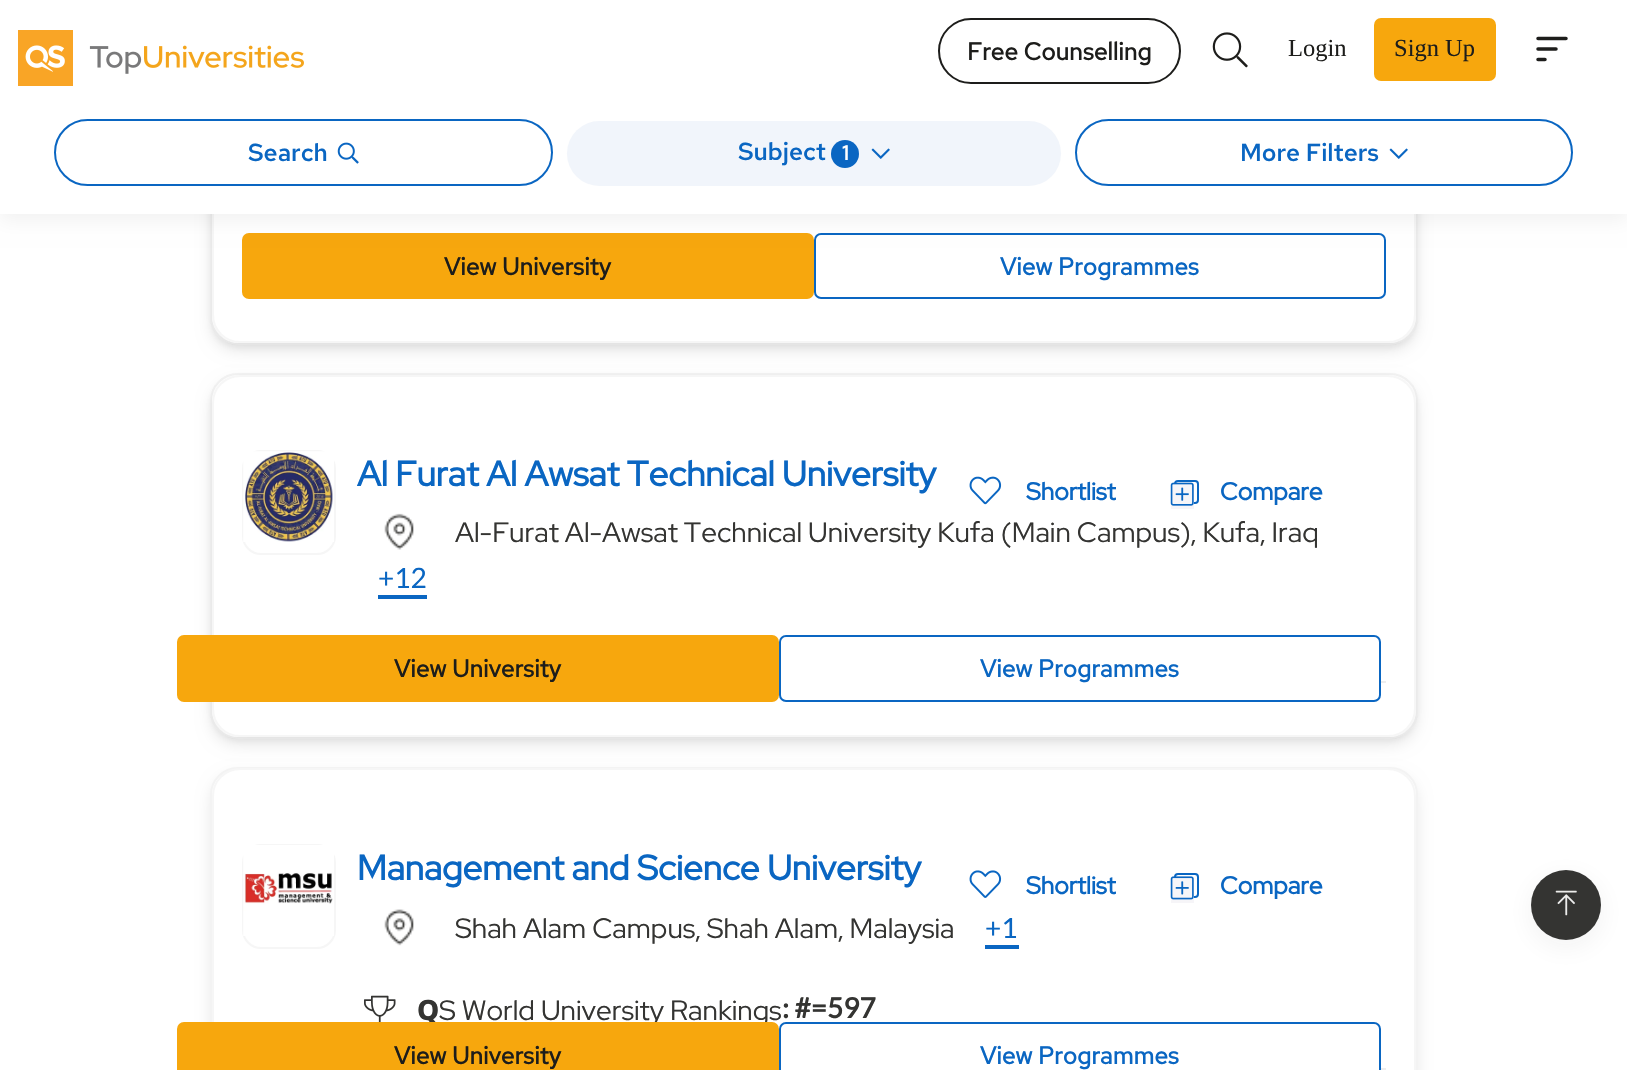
#include "include/core/SkBlurTypes.h"
#include "include/core/SkCanvas.h"
#include "include/core/SkData.h"
#include "include/core/SkFont.h"
#include "include/core/SkFontMgr.h"
#include "include/core/SkImage.h"
#include "include/core/SkMaskFilter.h"
#include "include/core/SkPaint.h"
#include "include/core/SkPathBuilder.h"
#include "include/core/SkTextBlob.h"
#include "include/effects/SkDashPathEffect.h"
#include "include/effects/SkGradientShader.h"
#include "include/utils/SkParsePath.h"

extern sk_sp<SkFontMgr> fontMgr;

void draw(SkCanvas* canvas) {
  SkPaint p;
  p.setAntiAlias(true);
  canvas->clear(SK_ColorWHITE);
  p.setColor(SkColorSetARGB(20, 0, 0, 0));
  p.setMaskFilter(SkMaskFilter::MakeBlur(kNormal_SkBlurStyle, 7));
  canvas->drawRoundRect(SkRect::MakeLTRB(210, -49, 1418, 352), 28, 28, p);
  p.setMaskFilter(nullptr);
  p.setColor(SK_ColorWHITE);
  canvas->drawRoundRect(SkRect::MakeLTRB(210, -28, 1418, 345), 28, 28, p);
  p.setStyle(SkPaint::kStroke_Style);
  p.setStrokeWidth(2);
  p.setColor(SkColorSetARGB(31, 151, 151, 151));
  canvas->drawRoundRect(SkRect::MakeLTRB(211, -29, 1417, 344), 27, 27, p);
  canvas->save();
  canvas->clipPath(SkPathBuilder(SkPathFillType::kEvenOdd).moveTo(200, 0).lineTo(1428, 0).lineTo(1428, 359).lineTo(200, 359).close().moveTo(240, -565).lineTo(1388, -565).cubicTo(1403.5f, -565, 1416, -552.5f, 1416, -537).lineTo(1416, 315).cubicTo(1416, 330.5f, 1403.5f, 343, 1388, 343).lineTo(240, 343).cubicTo(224.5f, 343, 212, 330.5f, 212, 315).lineTo(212, -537).cubicTo(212, -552.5f, 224.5f, -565, 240, -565).close().detach(), true);
  p.setStyle(SkPaint::kFill_Style);
  p.setColor(SkColorSetARGB(20, 29, 29, 27));
  p.setMaskFilter(SkMaskFilter::MakeBlur(kNormal_SkBlurStyle, 3.5f));
  canvas->drawRoundRect(SkRect::MakeLTRB(212, -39, 1416, 347), 28, 28, p);
  p.setMaskFilter(nullptr);
  canvas->restore();
  p.setStyle(SkPaint::kStroke_Style);
  p.setColor(SkColorSetRGB(246, 246, 246));
  canvas->drawRoundRect(SkRect::MakeLTRB(213, -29, 1415, 342), 27, 27, p);
  p.setStyle(SkPaint::kFill_Style);
  p.setColor(SkColorSetRGB(247, 167, 13));
  canvas->drawRoundRect(SkRect::MakeLTRB(243, 234, 813, 298), 6, 6, p);
  p.setStyle(SkPaint::kStroke_Style);
  canvas->drawRoundRect(SkRect::MakeLTRB(243, 234, 813, 298), 6, 6, p);
  p.setColor(SkColorSetRGB(10, 102, 194));
  canvas->drawRoundRect(SkRect::MakeLTRB(815, 234, 1385, 298), 6, 6, p);
  p.setStyle(SkPaint::kFill_Style);
  p.setColor(SkColorSetARGB(13, 0, 0, 0));
  p.setMaskFilter(SkMaskFilter::MakeBlur(kNormal_SkBlurStyle, 9));
  canvas->drawRect(SkRect::MakeLTRB(0, 95, 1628, 221), p);
  p.setMaskFilter(nullptr);
  p.setColor(SK_ColorWHITE);
  canvas->drawRect(SkRect::MakeLTRB(0, 0, 1627, 214), p);
  canvas->drawImageRect(SkImages::DeferredFromEncodedData(SkData::MakeFromFileName("images/1.png")), SkRect::MakeLTRB(18, 30, 304, 86), SkSamplingOptions());
  p.setStyle(SkPaint::kStroke_Style);
  p.setColor(SkColorSetRGB(29, 29, 27));
  canvas->drawRoundRect(SkRect::MakeLTRB(939, 19, 1180, 83), 32, 32, p);
  canvas->drawImageRect(SkImages::DeferredFromEncodedData(SkData::MakeFromFileName("images/2.png")), SkRect::MakeLTRB(1212, 32, 1248, 68), SkSamplingOptions());
  p.setStyle(SkPaint::kFill_Style);
  p.setColor(SkColorSetRGB(247, 167, 13));
  canvas->drawRoundRect(SkRect::MakeLTRB(1374, 18, 1496, 81), 7, 7, p);
  p.setStyle(SkPaint::kStroke_Style);
  p.setStrokeWidth(3.5f);
  p.setStrokeCap(SkPaint::kRound_Cap);
  p.setStrokeJoin(SkPaint::kRound_Join);
  p.setColor(SkColorSetRGB(29, 29, 27));
  canvas->drawPath(SkPathBuilder().moveTo(1538, 49).lineTo(1556, 49).moveTo(1538, 38.5f).lineTo(1566, 38.5f).moveTo(1538, 59.5f).lineTo(1545, 59.5f).detach(), p);
  p.setStrokeWidth(2);
  p.setStrokeCap(SkPaint::kButt_Cap);
  p.setStrokeJoin(SkPaint::kMiter_Join);
  p.setColor(SkColorSetRGB(10, 102, 194));
  canvas->drawRoundRect(SkRect::MakeLTRB(55, 120, 552, 185), 32.5f, 32.5f, p);
  canvas->drawImageRect(SkImages::DeferredFromEncodedData(SkData::MakeFromFileName("images/3.png")), SkRect::MakeLTRB(337, 142, 359, 164), SkSamplingOptions());
  p.setStyle(SkPaint::kFill_Style);
  p.setColor(SkColorSetRGB(241, 245, 251));
  canvas->drawRoundRect(SkRect::MakeLTRB(567, 121, 1061, 186), 32.5f, 32.5f, p);
  p.setColor(SkColorSetRGB(10, 102, 194));
  canvas->drawCircle(845, 154, 14, p);
  canvas->drawImageRect(SkImages::DeferredFromEncodedData(SkData::MakeFromFileName("images/4.png")), SkRect::MakeLTRB(871, 148, 890, 159), SkSamplingOptions());
  p.setStyle(SkPaint::kStroke_Style);
  canvas->drawRoundRect(SkRect::MakeLTRB(1076, 120, 1572, 185), 32.5f, 32.5f, p);
  canvas->drawImageRect(SkImages::DeferredFromEncodedData(SkData::MakeFromFileName("images/5.png")), SkRect::MakeLTRB(1389, 148, 1408, 159), SkSamplingOptions());
  p.setStyle(SkPaint::kFill_Style);
  p.setColor(SkColorSetARGB(20, 0, 0, 0));
  p.setMaskFilter(SkMaskFilter::MakeBlur(kNormal_SkBlurStyle, 7));
  canvas->drawRoundRect(SkRect::MakeLTRB(210, 380, 1418, 746), 28, 28, p);
  p.setMaskFilter(nullptr);
  p.setColor(SK_ColorWHITE);
  canvas->drawRoundRect(SkRect::MakeLTRB(210, 373, 1418, 739), 28, 28, p);
  p.setStyle(SkPaint::kStroke_Style);
  p.setColor(SkColorSetARGB(31, 151, 151, 151));
  canvas->drawRoundRect(SkRect::MakeLTRB(211, 374, 1417, 738), 27, 27, p);
  canvas->save();
  canvas->clipPath(SkPathBuilder(SkPathFillType::kEvenOdd).moveTo(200, 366).lineTo(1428, 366).lineTo(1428, 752).lineTo(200, 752).close().moveTo(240, 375).lineTo(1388, 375).cubicTo(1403.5f, 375, 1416, 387.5f, 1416, 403).lineTo(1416, 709).cubicTo(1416, 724.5f, 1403.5f, 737, 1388, 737).lineTo(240, 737).cubicTo(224.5f, 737, 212, 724.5f, 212, 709).lineTo(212, 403).cubicTo(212, 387.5f, 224.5f, 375, 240, 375).close().detach(), true);
  p.setStyle(SkPaint::kFill_Style);
  p.setColor(SkColorSetARGB(20, 29, 29, 27));
  p.setMaskFilter(SkMaskFilter::MakeBlur(kNormal_SkBlurStyle, 3.5f));
  canvas->drawRoundRect(SkRect::MakeLTRB(212, 378, 1416, 740), 28, 28, p);
  p.setMaskFilter(nullptr);
  canvas->restore();
  p.setStyle(SkPaint::kStroke_Style);
  p.setColor(SkColorSetRGB(246, 246, 246));
  canvas->drawRoundRect(SkRect::MakeLTRB(213, 376, 1415, 736), 27, 27, p);
  p.setStyle(SkPaint::kFill_Style);
  p.setColor(SkColorSetRGB(237, 237, 237));
  canvas->drawRect(SkRect::MakeLTRB(1381, 681, 1386, 683), p);
  p.setStyle(SkPaint::kStroke_Style);
  p.setColor(SkColorSetRGB(246, 246, 246));
  canvas->drawRoundRect(SkRect::MakeLTRB(243, 451, 335, 554), 18, 18, p);
  canvas->drawImageRect(SkImages::DeferredFromEncodedData(SkData::MakeFromFileName("images/6.png")), SkRect::MakeLTRB(243, 451, 334, 542), SkSamplingOptions());
  canvas->drawImageRect(SkImages::DeferredFromEncodedData(SkData::MakeFromFileName("images/7.png")), SkRect::MakeLTRB(384, 513, 414, 550), SkSamplingOptions());
  p.setStyle(SkPaint::kFill_Style);
  p.setColor(SkColorSetRGB(10, 102, 194));
  canvas->drawRect(SkRect::MakeLTRB(378, 595, 427, 599), p);
  canvas->drawImageRect(SkImages::DeferredFromEncodedData(SkData::MakeFromFileName("images/8.png")), SkRect::MakeLTRB(969, 476, 1002, 505), SkSamplingOptions());
  p.setStyle(SkPaint::kStroke_Style);
  canvas->drawRoundRect(SkRect::MakeLTRB(1175, 481, 1198, 503), 3, 3, p);
  p.setStyle(SkPaint::kFill_Style);
  p.setColor(SkColorSetRGB(246, 245, 248));
  canvas->drawRect(SkRect::MakeLTRB(1171, 483, 1194, 509), p);
  canvas->drawImageRect(SkImages::DeferredFromEncodedData(SkData::MakeFromFileName("images/9.png")), SkRect::MakeLTRB(1170, 482, 1194, 506), SkSamplingOptions());
  p.setColor(SkColorSetRGB(247, 167, 13));
  canvas->drawRoundRect(SkRect::MakeLTRB(178, 636, 778, 701), 6, 6, p);
  p.setStyle(SkPaint::kStroke_Style);
  canvas->drawRoundRect(SkRect::MakeLTRB(178, 636, 778, 701), 6, 6, p);
  p.setColor(SkColorSetRGB(10, 102, 194));
  canvas->drawRoundRect(SkRect::MakeLTRB(780, 636, 1380, 701), 6, 6, p);
  p.setStyle(SkPaint::kFill_Style);
  p.setColor(SkColorSetARGB(20, 0, 0, 0));
  p.setMaskFilter(SkMaskFilter::MakeBlur(kNormal_SkBlurStyle, 7));
  canvas->drawRoundRect(SkRect::MakeLTRB(210, 774, 1418, 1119), 28, 28, p);
  p.setMaskFilter(nullptr);
  p.setColor(SK_ColorWHITE);
  canvas->drawRoundRect(SkRect::MakeLTRB(211, 768, 1417, 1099), 27, 27, p);
  p.setStyle(SkPaint::kStroke_Style);
  p.setColor(SkColorSetRGB(243, 243, 243));
  canvas->drawRoundRect(SkRect::MakeLTRB(211, 768, 1417, 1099), 27, 27, p);
  p.setColor(SkColorSetRGB(246, 246, 246));
  canvas->drawRoundRect(SkRect::MakeLTRB(213, 769, 1415, 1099), 27, 27, p);
  p.setStyle(SkPaint::kFill_Style);
  p.setColor(SkColorSetRGB(237, 237, 237));
  canvas->drawRect(SkRect::MakeLTRB(1381, 1068, 1386, 1070), p);
  p.setStyle(SkPaint::kStroke_Style);
  p.setColor(SkColorSetRGB(246, 246, 246));
  canvas->drawRoundRect(SkRect::MakeLTRB(243, 845, 335, 948), 18, 18, p);
  canvas->drawImageRect(SkImages::DeferredFromEncodedData(SkData::MakeFromFileName("images/10.png")), SkRect::MakeLTRB(243, 845, 334, 936), SkSamplingOptions());
  canvas->drawImageRect(SkImages::DeferredFromEncodedData(SkData::MakeFromFileName("images/11.png")), SkRect::MakeLTRB(384, 909, 414, 946), SkSamplingOptions());
  p.setStyle(SkPaint::kFill_Style);
  p.setColor(SkColorSetRGB(10, 102, 194));
  canvas->drawRect(SkRect::MakeLTRB(985, 945, 1019, 949), p);
  canvas->drawImageRect(SkImages::DeferredFromEncodedData(SkData::MakeFromFileName("images/12.png")), SkRect::MakeLTRB(364, 995, 396, 1022), SkSamplingOptions());
  canvas->drawImageRect(SkImages::DeferredFromEncodedData(SkData::MakeFromFileName("images/13.png")), SkRect::MakeLTRB(969, 870, 1002, 898), SkSamplingOptions());
  p.setStyle(SkPaint::kStroke_Style);
  canvas->drawRoundRect(SkRect::MakeLTRB(1175, 874, 1198, 897), 3, 3, p);
  p.setStyle(SkPaint::kFill_Style);
  p.setColor(SkColorSetRGB(246, 245, 248));
  canvas->drawRect(SkRect::MakeLTRB(1171, 877, 1194, 903), p);
  canvas->drawImageRect(SkImages::DeferredFromEncodedData(SkData::MakeFromFileName("images/14.png")), SkRect::MakeLTRB(1170, 876, 1194, 900), SkSamplingOptions());
  p.setColor(SkColorSetARGB(15, 26, 26, 26));
  p.setMaskFilter(SkMaskFilter::MakeBlur(kNormal_SkBlurStyle, 14));
  canvas->drawRoundRect(SkRect::MakeLTRB(1531, 877, 1601, 947), 35, 35, p);
  p.setMaskFilter(nullptr);
  p.setColor(SkColorSetRGB(52, 52, 50));
  canvas->drawCircle(1566, 905, 35, p);
  canvas->drawImageRect(SkImages::DeferredFromEncodedData(SkData::MakeFromFileName("images/15.png")), SkRect::MakeLTRB(1555, 890, 1577, 916), SkSamplingOptions());
  SkFont font1(fontMgr->matchFamilyStyle("Red Hat Text", SkFontStyle::Bold()), 24.5f);
  font1.setSubpixel(true);
  p.setColor(SkColorSetRGB(29, 29, 27));
  canvas->drawString("Free Counselling", 967, 60, font1, p);
  SkFont font2(fontMgr->matchFamilyStyle("Liberation Serif", SkFontStyle::Normal()), 24.5f);
  font2.setSubpixel(true);
  canvas->drawString("Login", 1288, 56, font2, p);
  canvas->drawString("Sign Up", 1394, 56, font2, p);
  SkFont font3(fontMgr->matchFamilyStyle("Red Hat Text", SkFontStyle(500, SkFontStyle::kNormal_Width, SkFontStyle::kUpright_Slant)), 24.5f);
  font3.setSubpixel(true);
  p.setColor(SkColorSetRGB(10, 102, 194));
  canvas->drawString("Search", 248, 161, font3, p);
  canvas->drawString("Subject", 738, 160, font3, p);
  SkFont font4(fontMgr->matchFamilyStyle("Red Hat Text", SkFontStyle(500, SkFontStyle::kNormal_Width, SkFontStyle::kUpright_Slant)), 21);
  font4.setSubpixel(true);
  p.setColor(SK_ColorWHITE);
  canvas->drawString("1", 842, 160, font4, p);
  p.setColor(SkColorSetRGB(10, 102, 194));
  canvas->drawString("More Filters", 1240, 161, font3, p);
  p.setColor(SkColorSetRGB(29, 29, 27));
  canvas->drawString("View University", 444, 275, font1, p);
  p.setColor(SkColorSetRGB(10, 102, 194));
  canvas->drawString("View Programmes", 1000, 275, font1, p);
  SkFont font5(fontMgr->matchFamilyStyle("Red Hat Display", SkFontStyle::Bold()), 35);
  font5.setSubpixel(true);
  canvas->drawString("Al Furat Al Awsat Technical University", 357, 486, font5, p);
  SkFont font6(fontMgr->matchFamilyStyle("Red Hat Display", SkFontStyle::Normal()), 28);
  font6.setSubpixel(true);
  p.setColor(SkColorSetRGB(52, 52, 50));
  canvas->drawString("Al-Furat Al-Awsat Technical University Kufa (Main Campus), Kufa, Iraq", 455, 542, font6, p);
  SkFont font7(fontMgr->matchFamilyStyle("Lato", SkFontStyle::Normal()), 28);
  font7.setSubpixel(true);
  p.setColor(SkColorSetRGB(10, 102, 194));
  canvas->drawString("+12", 378, 588, font7, p);
  SkFont font8(fontMgr->matchFamilyStyle("Red Hat Display", SkFontStyle::Bold()), 24.5f);
  font8.setSubpixel(true);
  canvas->drawString("Shortlist", 1026, 500, font8, p);
  canvas->drawString("Compare", 1220, 500, font8, p);
  p.setColor(SkColorSetRGB(29, 29, 27));
  canvas->drawString("View University", 394, 677, font1, p);
  p.setColor(SkColorSetRGB(10, 102, 194));
  canvas->drawString("View Programmes", 980, 677, font1, p);
  canvas->drawString("Management and Science University", 357, 880, font5, p);
  p.setColor(SkColorSetRGB(52, 52, 50));
  canvas->drawString("Shah Alam Campus, Shah Alam, Malaysia", 455, 938, font6, p);
  p.setColor(SkColorSetRGB(10, 102, 194));
  canvas->drawString("+1", 985, 938, font7, p);
  SkFont font9(fontMgr->matchFamilyStyle("Noto Sans", SkFontStyle(800, SkFontStyle::kNormal_Width, SkFontStyle::kUpright_Slant)), 28);
  font9.setSubpixel(true);
  p.setColor(SkColorSetRGB(52, 52, 50));
  canvas->drawString("Q", 417, 1020, font9, p);
  canvas->drawString("S World University Rankings", 439, 1020, font6, p);
  SkFont font10(fontMgr->matchFamilyStyle("Lato", SkFontStyle::Bold()), 28);
  font10.setSubpixel(true);
  canvas->drawString(": #=597", 782, 1018, font10, p);
  p.setColor(SkColorSetRGB(10, 102, 194));
  canvas->drawString("Shortlist", 1026, 894, font8, p);
  canvas->drawString("Compare", 1220, 894, font8, p);
  p.setColor(SkColorSetRGB(247, 167, 13));
  canvas->drawRoundRect(SkRect::MakeLTRB(178, 1023, 778, 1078), 6, 6, p);
  p.setStyle(SkPaint::kStroke_Style);
  canvas->drawRoundRect(SkRect::MakeLTRB(178, 1023, 778, 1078), 6, 6, p);
  p.setStyle(SkPaint::kFill_Style);
  p.setColor(SkColorSetRGB(29, 29, 27));
  canvas->drawString("View University", 394, 1064, font1, p);
  p.setStyle(SkPaint::kStroke_Style);
  p.setColor(SkColorSetRGB(10, 102, 194));
  canvas->drawRoundRect(SkRect::MakeLTRB(780, 1023, 1380, 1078), 6, 6, p);
  p.setStyle(SkPaint::kFill_Style);
  canvas->drawString("View Programmes", 980, 1064, font1, p);
}
